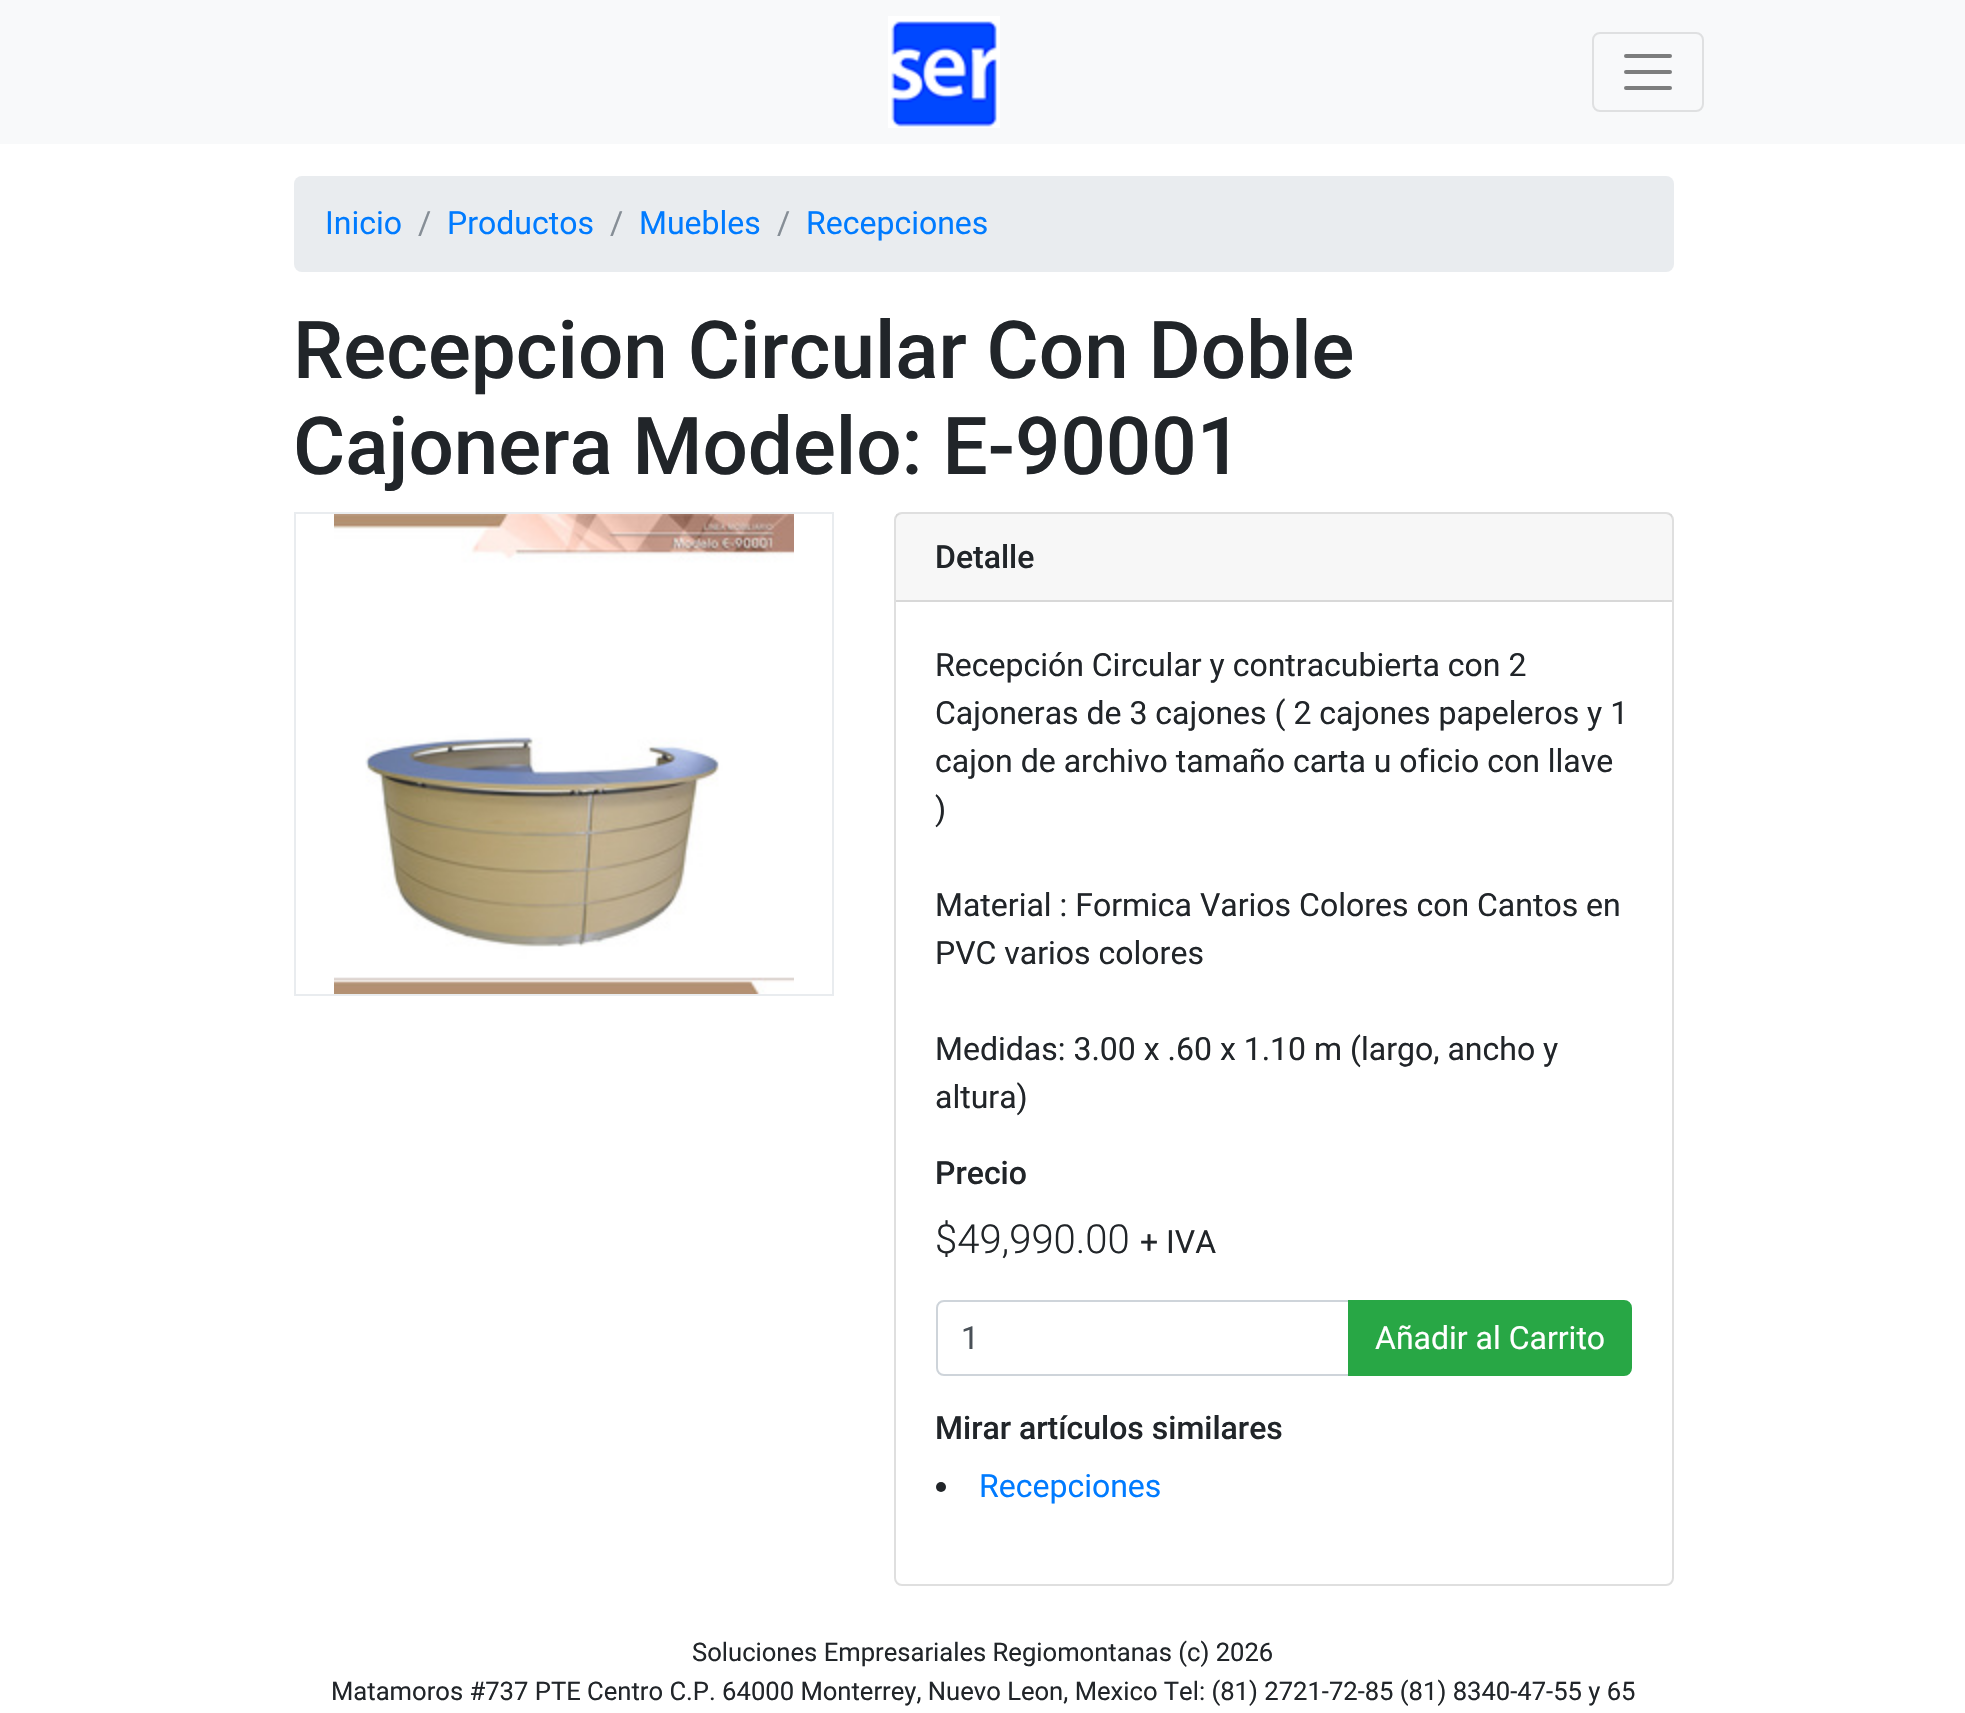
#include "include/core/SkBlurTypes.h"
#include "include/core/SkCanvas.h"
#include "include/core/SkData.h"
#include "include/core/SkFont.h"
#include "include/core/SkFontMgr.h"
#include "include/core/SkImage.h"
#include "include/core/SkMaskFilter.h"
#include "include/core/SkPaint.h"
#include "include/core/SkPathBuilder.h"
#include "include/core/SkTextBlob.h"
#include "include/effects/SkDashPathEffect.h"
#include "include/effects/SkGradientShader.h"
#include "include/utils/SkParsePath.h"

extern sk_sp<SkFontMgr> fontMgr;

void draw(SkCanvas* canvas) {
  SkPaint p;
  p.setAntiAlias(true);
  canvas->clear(SK_ColorWHITE);
  p.setColor(SkColorSetRGB(248, 249, 250));
  canvas->drawRect(SkRect::MakeLTRB(0, 0, 1965, 144), p);
  canvas->drawImageRect(SkImages::DeferredFromEncodedData(SkData::MakeFromFileName("images/1.png")), SkRect::MakeLTRB(888, 16, 1000, 128), SkSamplingOptions());
  p.setStyle(SkPaint::kStroke_Style);
  p.setStrokeWidth(2);
  p.setColor(SkColorSetRGB(223, 224, 225));
  canvas->drawRoundRect(SkRect::MakeLTRB(1593, 33, 1703, 111), 7, 7, p);
  p.setStrokeWidth(4);
  p.setStrokeCap(SkPaint::kRound_Cap);
  p.setColor(SkColorSetRGB(124, 125, 125));
  canvas->drawPath(SkPathBuilder().moveTo(1626, 56).lineTo(1670, 56).moveTo(1626, 72).lineTo(1670, 72).moveTo(1626, 88).lineTo(1670, 88).detach(), p);
  p.setStyle(SkPaint::kFill_Style);
  p.setColor(SkColorSetRGB(233, 236, 239));
  canvas->drawRoundRect(SkRect::MakeLTRB(294, 176, 1674, 272), 8, 8, p);
  p.setStyle(SkPaint::kStroke_Style);
  p.setStrokeWidth(2);
  p.setStrokeCap(SkPaint::kButt_Cap);
  canvas->drawRect(SkRect::MakeLTRB(295, 513, 833, 995), p);
  canvas->drawImageRect(SkImages::DeferredFromEncodedData(SkData::MakeFromFileName("images/2.png")), SkRect::MakeLTRB(334, 514, 794, 994), SkSamplingOptions());
  p.setColor(SkColorSetRGB(223, 223, 223));
  canvas->drawRoundRect(SkRect::MakeLTRB(895, 513, 1673, 1585), 7, 7, p);
  p.setStyle(SkPaint::kFill_Style);
  p.setColor(SkColorSetARGB(8, 0, 0, 0));
  canvas->drawRect(SkRect::MakeLTRB(896, 514, 1672, 600), p);
  p.setColor(SkColorSetRGB(216, 216, 216));
  canvas->drawRect(SkRect::MakeLTRB(896, 600, 1672, 602), p);
  p.setStyle(SkPaint::kStroke_Style);
  p.setColor(SkColorSetRGB(206, 212, 218));
  canvas->drawPath(SkPathBuilder().moveTo(944, 1301).lineTo(1349, 1301).lineTo(1349, 1375).lineTo(944, 1375).cubicTo(940, 1375, 937, 1372, 937, 1368).lineTo(937, 1308).cubicTo(937, 1304, 940, 1301, 944, 1301).close().detach(), p);
  p.setStyle(SkPaint::kFill_Style);
  p.setColor(SkColorSetRGB(40, 167, 69));
  canvas->drawPath(SkPathBuilder().moveTo(1349, 1301).lineTo(1624, 1301).cubicTo(1628, 1301, 1631, 1304, 1631, 1308).lineTo(1631, 1368).cubicTo(1631, 1372, 1628, 1375, 1624, 1375).lineTo(1349, 1375).close().detach(), p);
  p.setStyle(SkPaint::kStroke_Style);
  canvas->drawPath(SkPathBuilder().moveTo(1349, 1301).lineTo(1624, 1301).cubicTo(1628, 1301, 1631, 1304, 1631, 1308).lineTo(1631, 1368).cubicTo(1631, 1372, 1628, 1375, 1624, 1375).lineTo(1349, 1375).close().detach(), p);
  p.setStyle(SkPaint::kFill_Style);
  p.setColor(SkColorSetRGB(33, 37, 41));
  canvas->drawCircle(941, 1487, 5, p);
  SkFont font1(fontMgr->matchFamilyStyle("Roboto", SkFontStyle::Normal()), 32);
  font1.setSubpixel(true);
  p.setColor(SkColorSetRGB(0, 123, 255));
  canvas->drawString("Inicio", 325, 234, font1, p);
  p.setColor(SkColorSetRGB(134, 142, 150));
  canvas->drawString("/", 418, 234, font1, p);
  p.setColor(SkColorSetRGB(0, 123, 255));
  canvas->drawString("Productos", 447, 234, font1, p);
  p.setColor(SkColorSetRGB(134, 142, 150));
  canvas->drawString("/", 610, 234, font1, p);
  p.setColor(SkColorSetRGB(0, 123, 255));
  canvas->drawString("Muebles", 639, 234, font1, p);
  p.setColor(SkColorSetRGB(134, 142, 150));
  canvas->drawString("/", 777, 234, font1, p);
  p.setColor(SkColorSetRGB(0, 123, 255));
  canvas->drawString("Recepciones", 806, 234, font1, p);
  SkFont font2(fontMgr->matchFamilyStyle("Roboto", SkFontStyle(500, SkFontStyle::kNormal_Width, SkFontStyle::kUpright_Slant)), 80);
  font2.setSubpixel(true);
  p.setColor(SkColorSetRGB(33, 37, 41));
  canvas->drawString("Recepcion Circular Con Doble", 293, 378, font2, p);
  canvas->drawString("Cajonera Modelo: E-90001", 293, 474, font2, p);
  SkFont font3(fontMgr->matchFamilyStyle("Roboto", SkFontStyle(500, SkFontStyle::kNormal_Width, SkFontStyle::kUpright_Slant)), 32);
  font3.setSubpixel(true);
  canvas->drawString("Detalle", 935, 568, font3, p);
  canvas->drawString("Recepción Circular y contracubierta con 2", 935, 676, font1, p);
  canvas->drawString("Cajoneras de 3 cajones ( 2 cajones papeleros y 1", 935, 724, font1, p);
  canvas->drawString("cajon de archivo tamaño carta u oficio con llave", 935, 772, font1, p);
  canvas->drawString(")", 935, 820, font1, p);
  canvas->drawString("Material : Formica Varios Colores con Cantos en", 935, 916, font1, p);
  canvas->drawString("PVC varios colores", 935, 964, font1, p);
  canvas->drawString("Medidas: 3.00 x .60 x 1.10 m (largo, ancho y", 935, 1060, font1, p);
  canvas->drawString("altura)", 935, 1108, font1, p);
  canvas->drawString("Precio", 935, 1184, font3, p);
  SkFont font4(fontMgr->matchFamilyStyle("Roboto", SkFontStyle(300, SkFontStyle::kNormal_Width, SkFontStyle::kUpright_Slant)), 40);
  font4.setSubpixel(true);
  canvas->drawString("$49,990.00", 935, 1253, font4, p);
  canvas->drawString("+ IVA", 1140, 1253, font1, p);
  p.setColor(SkColorSetRGB(73, 80, 87));
  canvas->drawString("1", 961, 1349, font1, p);
  p.setColor(SK_ColorWHITE);
  canvas->drawString("Añadir al Carrito", 1375, 1349, font1, p);
  p.setColor(SkColorSetRGB(33, 37, 41));
  canvas->drawString("Mirar artículos similares", 935, 1439, font3, p);
  p.setColor(SkColorSetRGB(0, 123, 255));
  canvas->drawString("Recepciones", 979, 1497, font1, p);
  SkFont font5(fontMgr->matchFamilyStyle("Roboto", SkFontStyle::Normal()), 25.6f);
  font5.setSubpixel(true);
  p.setColor(SkColorSetRGB(33, 37, 41));
  canvas->drawString("Soluciones Empresariales Regiomontanas (c) 2026", 692, 1661, font5, p);
  canvas->drawString("Matamoros #737 PTE Centro C.P. 64000 Monterrey, Nuevo Leon, Mexico Tel: (81) 2721-72-85 (81) 8340-47-55 y 65", 331, 1700, font5, p);
}
